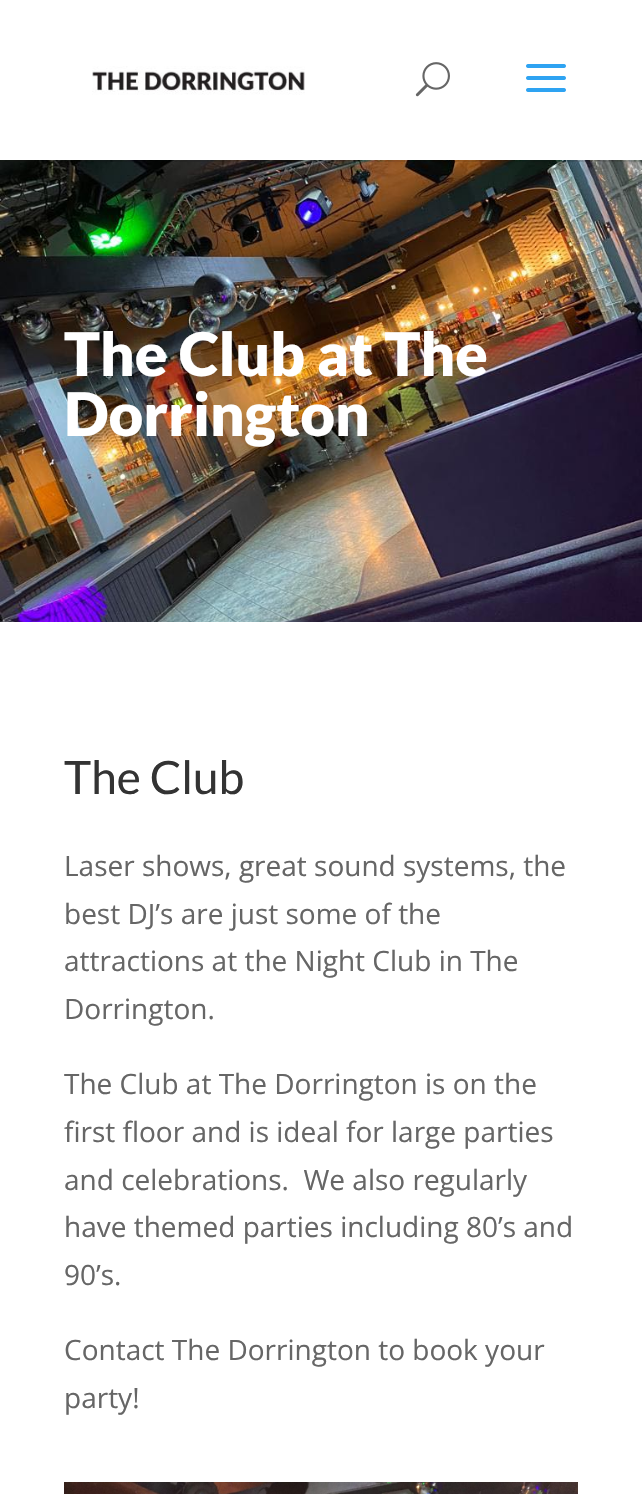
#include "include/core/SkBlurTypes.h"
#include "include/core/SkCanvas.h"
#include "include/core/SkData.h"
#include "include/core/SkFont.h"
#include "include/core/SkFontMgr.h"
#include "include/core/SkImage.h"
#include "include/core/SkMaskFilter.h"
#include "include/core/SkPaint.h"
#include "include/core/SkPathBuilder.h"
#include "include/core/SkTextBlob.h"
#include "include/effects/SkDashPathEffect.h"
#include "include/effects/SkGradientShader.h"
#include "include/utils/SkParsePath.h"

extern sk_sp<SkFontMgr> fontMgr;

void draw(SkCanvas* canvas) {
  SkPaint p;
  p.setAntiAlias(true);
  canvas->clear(SK_ColorWHITE);
  canvas->drawImageRect(SkImages::DeferredFromEncodedData(SkData::MakeFromFileName("images/4.png")), SkRect::MakeLTRB(0, 160, 642, 622), SkSamplingOptions());
  p.setColor(SkColorSetARGB(26, 0, 0, 0));
  canvas->drawRect(SkRect::MakeLTRB(40, 160, 642, 162), p);
  canvas->drawImageRect(SkImages::DeferredFromEncodedData(SkData::MakeFromFileName("images/1.png")), SkRect::MakeLTRB(92, 66, 305, 95), SkSamplingOptions());
  canvas->drawImageRect(SkImages::DeferredFromEncodedData(SkData::MakeFromFileName("images/2.png")), SkRect::MakeLTRB(415, 62, 450, 97), SkSamplingOptions());
  canvas->drawImageRect(SkImages::DeferredFromEncodedData(SkData::MakeFromFileName("images/3.png")), SkRect::MakeLTRB(526, 64, 566, 92), SkSamplingOptions());
  canvas->drawImageRect(SkImages::DeferredFromEncodedData(SkData::MakeFromFileName("images/5.png")), SkRect::MakeLTRB(64, 1482, 578, 1494), SkSamplingOptions());
  SkFont font1(fontMgr->matchFamilyStyle("Lato", SkFontStyle(900, SkFontStyle::kNormal_Width, SkFontStyle::kUpright_Slant)), 60);
  font1.setSubpixel(true);
  p.setColor(SK_ColorWHITE);
  canvas->drawString("The Club at The", 64, 376, font1, p);
  canvas->drawString("Dorrington", 64, 436, font1, p);
  SkFont font2(fontMgr->matchFamilyStyle("Lato", SkFontStyle::Normal()), 46);
  font2.setSubpixel(true);
  p.setColor(SkColorSetRGB(51, 51, 51));
  canvas->drawString("The Club", 64, 794, font2, p);
  SkFont font3(fontMgr->matchFamilyStyle("Open Sans", SkFontStyle::Normal()), 28);
  font3.setSubpixel(true);
  p.setColor(SkColorSetRGB(102, 102, 102));
  canvas->drawString("Laser shows, great sound systems, the", 64, 876, font3, p);
  canvas->drawString("best DJ’s are just some of the", 64, 924, font3, p);
  canvas->drawString("attractions at the Night Club in The", 64, 971, font3, p);
  canvas->drawString("Dorrington.", 64, 1019, font3, p);
  canvas->drawString("The Club at The Dorrington is on the", 64, 1094, font3, p);
  canvas->drawString("first floor and is ideal for large parties", 64, 1142, font3, p);
  canvas->drawString("and celebrations.  We also regularly", 64, 1190, font3, p);
  canvas->drawString("have themed parties including 80’s and", 64, 1237, font3, p);
  canvas->drawString("90’s.", 64, 1285, font3, p);
  canvas->drawString("Contact The Dorrington to book your", 64, 1360, font3, p);
  canvas->drawString("party!", 64, 1408, font3, p);
}
